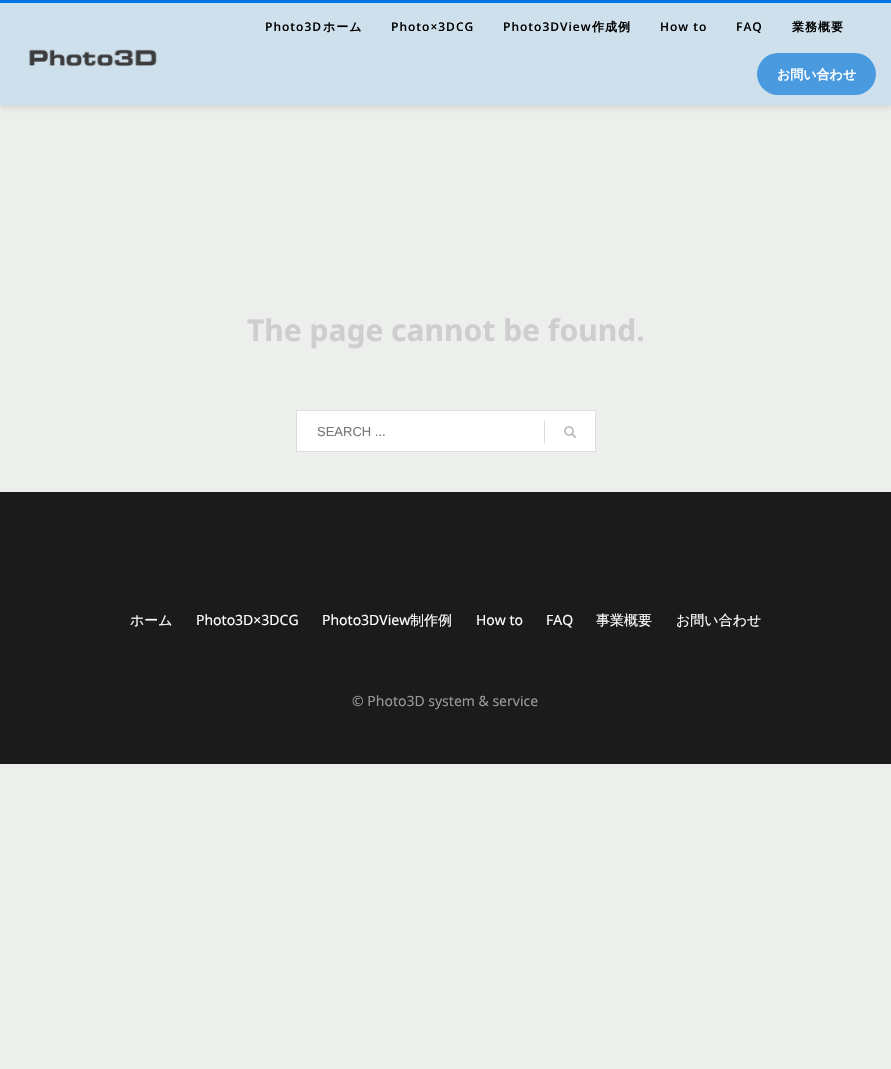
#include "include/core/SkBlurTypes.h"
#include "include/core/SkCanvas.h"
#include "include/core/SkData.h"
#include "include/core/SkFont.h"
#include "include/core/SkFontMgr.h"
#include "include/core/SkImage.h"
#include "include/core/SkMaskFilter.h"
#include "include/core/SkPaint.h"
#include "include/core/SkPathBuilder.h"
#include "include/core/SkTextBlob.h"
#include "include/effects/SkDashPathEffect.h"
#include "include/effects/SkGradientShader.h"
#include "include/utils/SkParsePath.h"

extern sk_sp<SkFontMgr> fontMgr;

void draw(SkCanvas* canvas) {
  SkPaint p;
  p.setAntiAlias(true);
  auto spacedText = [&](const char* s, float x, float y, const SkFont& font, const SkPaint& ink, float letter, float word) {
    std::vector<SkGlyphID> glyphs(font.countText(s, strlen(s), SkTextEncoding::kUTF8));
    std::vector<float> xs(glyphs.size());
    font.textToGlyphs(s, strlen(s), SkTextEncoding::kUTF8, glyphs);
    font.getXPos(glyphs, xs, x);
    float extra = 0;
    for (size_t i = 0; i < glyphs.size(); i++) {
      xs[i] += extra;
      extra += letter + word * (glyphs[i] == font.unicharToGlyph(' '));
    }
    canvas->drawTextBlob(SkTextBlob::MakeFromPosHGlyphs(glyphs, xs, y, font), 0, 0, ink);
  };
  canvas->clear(SkColorSetRGB(237, 239, 237));
  p.setColor(SkColorSetARGB(26, 0, 0, 0));
  p.setMaskFilter(SkMaskFilter::MakeBlur(kNormal_SkBlurStyle, 2.5f));
  canvas->drawRect(SkRect::MakeLTRB(0, 3, 891, 108), p);
  p.setMaskFilter(nullptr);
  p.setColor(SkColorSetRGB(206, 224, 235));
  canvas->drawRect(SkRect::MakeLTRB(0, 3, 891, 105), p);
  p.setColor(SkColorSetRGB(0, 119, 224));
  canvas->drawRect(SkRect::MakeLTRB(0, 0, 891, 3), p);
  canvas->drawImageRect(SkImages::DeferredFromEncodedData(SkData::MakeFromFileName("images/1.png")), SkRect::MakeLTRB(29, 49, 157, 67), SkSamplingOptions());
  p.setColor(SkColorSetRGB(74, 154, 224));
  canvas->drawRoundRect(SkRect::MakeLTRB(757, 53, 876, 95), 21, 21, p);
  p.setColor(SK_ColorWHITE);
  canvas->drawRect(SkRect::MakeLTRB(296.5f, 410.5f, 595.5f, 451.5f), p);
  p.setStyle(SkPaint::kStroke_Style);
  p.setStrokeWidth(1);
  p.setColor(SkColorSetRGB(221, 221, 221));
  canvas->drawRect(SkRect::MakeLTRB(296.5f, 410.5f, 595.5f, 451.5f), p);
  p.setStyle(SkPaint::kFill_Style);
  canvas->drawRect(SkRect::MakeLTRB(544, 420, 545, 444), p);
  canvas->drawImageRect(SkImages::DeferredFromEncodedData(SkData::MakeFromFileName("images/2.png")), SkRect::MakeLTRB(564, 426, 576, 438), SkSamplingOptions());
  p.setColor(SkColorSetRGB(27, 27, 27));
  canvas->drawRect(SkRect::MakeLTRB(0, 492, 891, 764), p);
  SkFont font1(fontMgr->matchFamilyStyle("Open Sans", SkFontStyle(600, SkFontStyle::kNormal_Width, SkFontStyle::kUpright_Slant)), 12);
  font1.setSubpixel(true);
  p.setColor(SK_ColorBLACK);
  spacedText("Photo3D", 265, 31, font1, p, 1, 0);
  SkFont font2(fontMgr->matchFamilyStyle("WenQuanYi Zen Hei", SkFontStyle::Bold()), 12);
  font2.setSubpixel(true);
  spacedText("ホーム", 323, 31, font2, p, 1, 0);
  spacedText("Photo×3DCG", 391, 31, font1, p, 1, 0);
  spacedText("Photo3DView", 503, 31, font1, p, 1, 0);
  spacedText("作成例", 592, 31, font2, p, 1, 0);
  spacedText("How to", 660, 31, font1, p, 1, 0);
  spacedText("FAQ", 736, 31, font1, p, 1, 0);
  spacedText("業務概要", 792, 31, font2, p, 1, 0);
  SkFont font3(fontMgr->matchFamilyStyle("WenQuanYi Zen Hei", SkFontStyle::Bold()), 13);
  font3.setSubpixel(true);
  p.setColor(SK_ColorWHITE);
  canvas->drawString("お問い合わせ", 777, 79, font3, p);
  SkFont font4(fontMgr->matchFamilyStyle("Noto Sans", SkFontStyle::Bold()), 30);
  font4.setSubpixel(true);
  p.setColor(SkColorSetRGB(205, 206, 205));
  canvas->drawString("The page cannot be found.", 247, 341, font4, p);
  SkFont font5(fontMgr->matchFamilyStyle("Liberation Sans", SkFontStyle::Normal()), 13);
  font5.setSubpixel(true);
  p.setColor(SkColorSetRGB(117, 117, 117));
  canvas->drawString("SEARCH ...", 317, 436, font5, p);
  SkFont font6(fontMgr->matchFamilyStyle("WenQuanYi Zen Hei", SkFontStyle(500, SkFontStyle::kNormal_Width, SkFontStyle::kUpright_Slant)), 14);
  font6.setSubpixel(true);
  p.setColor(SK_ColorWHITE);
  canvas->drawString("ホーム", 130, 625, font6, p);
  SkFont font7(fontMgr->matchFamilyStyle("Noto Sans", SkFontStyle::Normal()), 14);
  font7.setSubpixel(true);
  canvas->drawString("Photo3D×3DCG", 196, 625, font7, p);
  canvas->drawString("Photo3DView", 322, 625, font7, p);
  canvas->drawString("制作例", 410, 625, font6, p);
  canvas->drawString("How to", 476, 625, font7, p);
  canvas->drawString("FAQ", 546, 625, font7, p);
  canvas->drawString("事業概要", 596, 625, font6, p);
  canvas->drawString("お問い合わせ", 676, 625, font6, p);
  p.setColor(SkColorSetRGB(153, 153, 153));
  canvas->drawString("© Photo3D system & service", 352, 706, font7, p);
}
